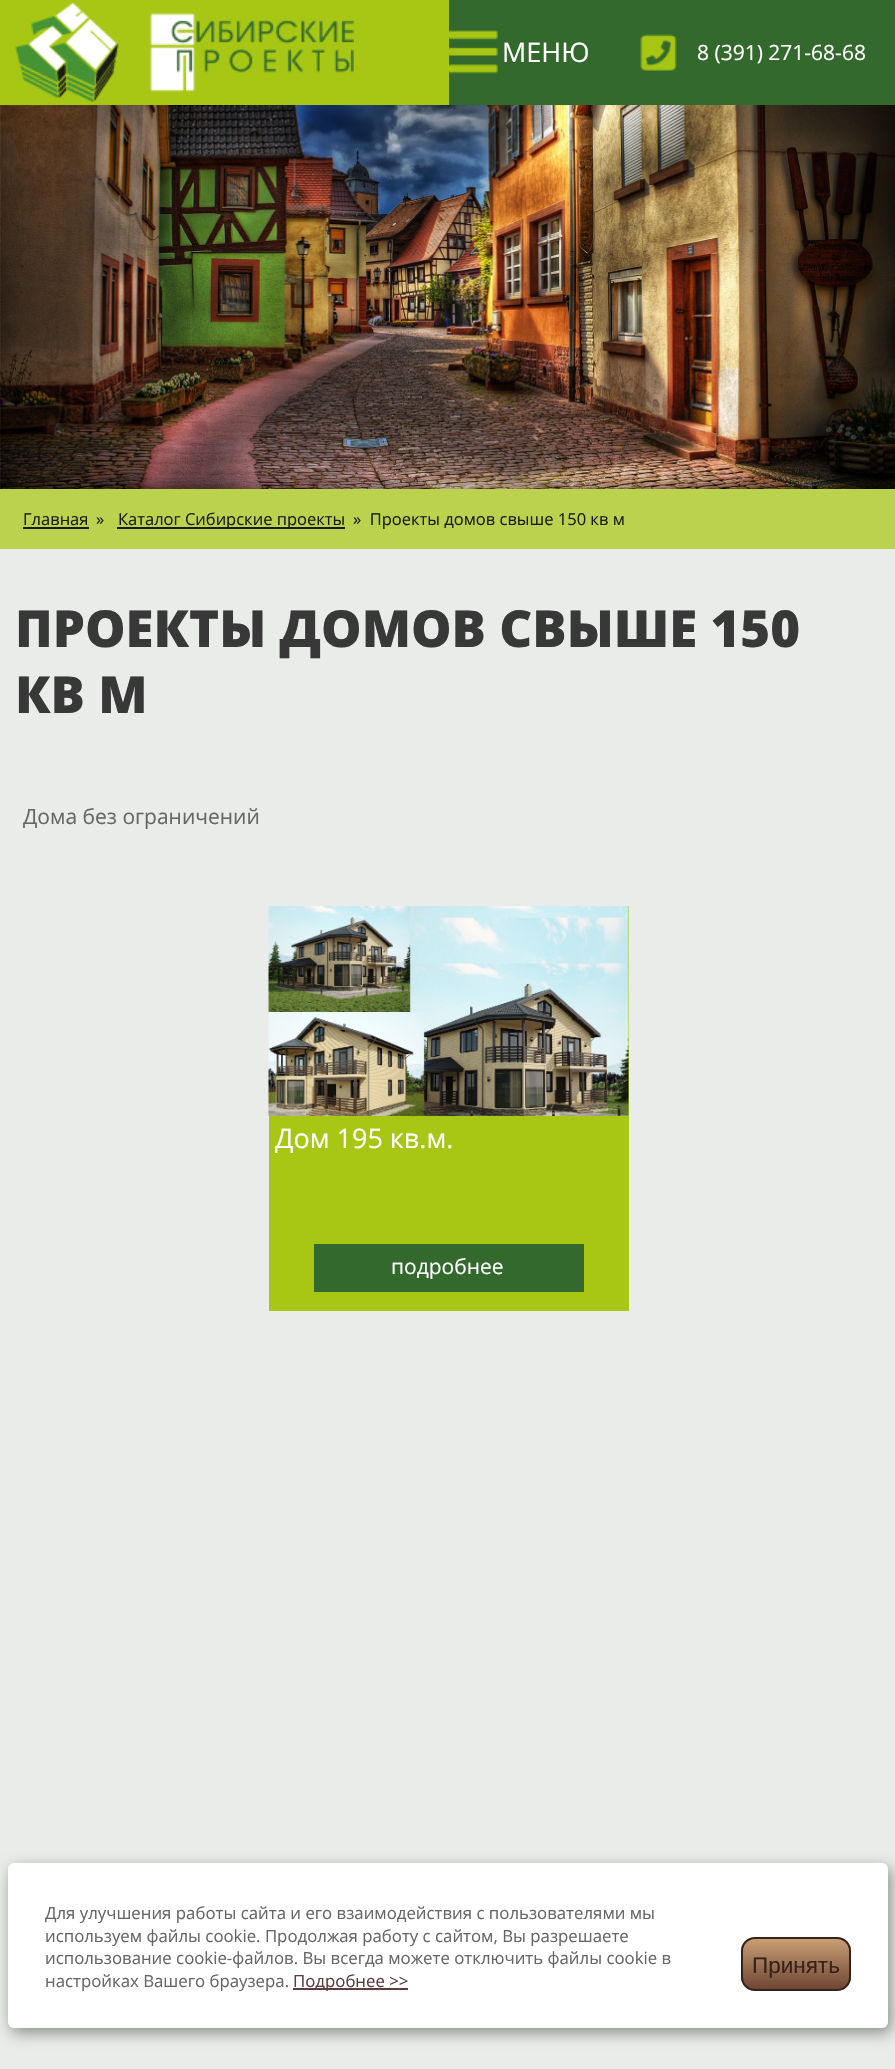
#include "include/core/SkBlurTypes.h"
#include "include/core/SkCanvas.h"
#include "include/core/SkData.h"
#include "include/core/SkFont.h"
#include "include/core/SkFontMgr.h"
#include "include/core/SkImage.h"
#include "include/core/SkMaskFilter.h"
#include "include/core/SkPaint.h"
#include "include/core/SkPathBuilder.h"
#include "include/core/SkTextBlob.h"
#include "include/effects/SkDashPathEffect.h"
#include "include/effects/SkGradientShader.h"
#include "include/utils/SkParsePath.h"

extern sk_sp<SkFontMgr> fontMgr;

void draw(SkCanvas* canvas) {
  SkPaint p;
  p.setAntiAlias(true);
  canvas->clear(SK_ColorWHITE);
  p.setColor(SkColorSetRGB(168, 199, 20));
  canvas->drawRect(SkRect::MakeLTRB(0, 0, 449, 105), p);
  p.setColor(SkColorSetRGB(51, 105, 44));
  canvas->drawRect(SkRect::MakeLTRB(449, 0, 895, 105), p);
  canvas->drawImageRect(SkImages::DeferredFromEncodedData(SkData::MakeFromFileName("images/1.png")), SkRect::MakeLTRB(15, 3, 354, 102), SkSamplingOptions());
  canvas->drawImageRect(SkImages::DeferredFromEncodedData(SkData::MakeFromFileName("images/2.png")), SkRect::MakeLTRB(449, 30, 498, 74), SkSamplingOptions());
  canvas->drawImageRect(SkImages::DeferredFromEncodedData(SkData::MakeFromFileName("images/3.png")), SkRect::MakeLTRB(640, 34, 677, 71), SkSamplingOptions());
  canvas->drawImageRect(SkImages::DeferredFromEncodedData(SkData::MakeFromFileName("images/4.png")), SkRect::MakeLTRB(0, 105, 895, 489), SkSamplingOptions());
  p.setColor(SK_ColorBLACK);
  p.setMaskFilter(SkMaskFilter::MakeBlur(kNormal_SkBlurStyle, 11));
  canvas->drawRect(SkRect::MakeLTRB(0, 495, 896, 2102), p);
  p.setMaskFilter(nullptr);
  p.setColor(SkColorSetRGB(233, 236, 233));
  canvas->drawRect(SkRect::MakeLTRB(0, 549, 895, 2069), p);
  p.setColor(SkColorSetRGB(187, 210, 79));
  canvas->drawRect(SkRect::MakeLTRB(0, 489, 895, 549), p);
  p.setColor(SkColorSetRGB(27, 27, 27));
  canvas->drawRect(SkRect::MakeLTRB(23, 527, 89, 529), p);
  canvas->drawRect(SkRect::MakeLTRB(117, 527, 345, 529), p);
  p.setColor(SkColorSetRGB(168, 199, 20));
  canvas->drawRect(SkRect::MakeLTRB(269, 906, 629, 1311), p);
  canvas->drawImageRect(SkImages::DeferredFromEncodedData(SkData::MakeFromFileName("images/5.png")), SkRect::MakeLTRB(268, 906, 629, 1116), SkSamplingOptions());
  p.setColor(SkColorSetRGB(51, 105, 44));
  canvas->drawRect(SkRect::MakeLTRB(314, 1244, 584, 1292), p);
  p.setColor(SkColorSetARGB(102, 0, 0, 0));
  p.setMaskFilter(SkMaskFilter::MakeBlur(kNormal_SkBlurStyle, 7.5f));
  canvas->drawRoundRect(SkRect::MakeLTRB(11, 1868, 891, 2033), 6, 6, p);
  p.setMaskFilter(nullptr);
  p.setColor(SK_ColorWHITE);
  canvas->drawRoundRect(SkRect::MakeLTRB(8, 1863, 888, 2028), 6, 6, p);
  p.setColor(SkColorSetRGB(90, 61, 61));
  canvas->drawRect(SkRect::MakeLTRB(293, 1988, 408, 1990), p);
  canvas->save();
  canvas->clipPath(SkPathBuilder().moveTo(755, 1937).lineTo(837, 1937).cubicTo(844.5f, 1937, 851, 1943.5f, 851, 1951).lineTo(851, 1977).cubicTo(851, 1984.5f, 844.5f, 1991, 837, 1991).lineTo(755, 1991).cubicTo(747.5f, 1991, 741, 1984.5f, 741, 1977).lineTo(741, 1951).cubicTo(741, 1943.5f, 747.5f, 1937, 755, 1937).close().detach(), true);
  {
    const SkColor colors[] = {SkColorSetRGB(202, 160, 118), SkColorSetRGB(111, 70, 52)};
    const float stops[] = {0, 1};
    const SkPoint ends[] = {{796, 1938}, {796, 1989}};
    p.setShader(SkGradientShader::MakeLinear(ends, colors, stops, 2, SkTileMode::kClamp));
    p.setAlpha(255);
  }
  canvas->drawRect(SkRect::MakeLTRB(741, 1938, 851, 1989), p);
  canvas->restore();
  p.setStyle(SkPaint::kStroke_Style);
  p.setStrokeWidth(2);
  p.setShader(nullptr);
  p.setColor(SkColorSetRGB(53, 34, 26));
  canvas->drawRoundRect(SkRect::MakeLTRB(742, 1938, 850, 1990), 13, 13, p);
  SkFont font1(fontMgr->matchFamilyStyle("Open Sans", SkFontStyle::Normal()), 27);
  font1.setSubpixel(true);
  p.setStyle(SkPaint::kFill_Style);
  p.setColor(SK_ColorWHITE);
  canvas->drawString("МЕНЮ", 502, 62, font1, p);
  SkFont font2(fontMgr->matchFamilyStyle("Open Sans", SkFontStyle::Normal()), 21);
  font2.setSubpixel(true);
  canvas->drawString("8 (391) 271-68-68", 697, 60, font2, p);
  SkFont font3(fontMgr->matchFamilyStyle("Open Sans", SkFontStyle::Normal()), 16.5f);
  font3.setSubpixel(true);
  p.setColor(SkColorSetRGB(27, 27, 27));
  canvas->drawString("Главная", 23, 525, font3, p);
  canvas->drawString("»", 96, 525, font3, p);
  canvas->drawString("Каталог Сибирские проекты", 118, 525, font3, p);
  canvas->drawString("»  Проекты домов свыше 150 кв м", 353, 525, font3, p);
  SkFont font4(fontMgr->matchFamilyStyle("Open Sans", SkFontStyle(800, SkFontStyle::kNormal_Width, SkFontStyle::kUpright_Slant)), 51);
  font4.setSubpixel(true);
  p.setColor(SkColorSetRGB(56, 56, 56));
  canvas->drawString("ПРОЕКТЫ ДОМОВ СВЫШЕ 150", 15, 647, font4, p);
  canvas->drawString("КВ М", 15, 713, font4, p);
  p.setColor(SkColorSetRGB(102, 102, 102));
  canvas->drawString("Дома без ограничений", 23, 824, font2, p);
  p.setColor(SK_ColorWHITE);
  canvas->drawString("Дом 195 кв.м.", 275, 1148, font1, p);
  canvas->drawString("подробнее", 391, 1274, font2, p);
  SkFont font5(fontMgr->matchFamilyStyle("Open Sans", SkFontStyle::Normal()), 16.8f);
  font5.setSubpixel(true);
  p.setColor(SkColorSetRGB(102, 102, 102));
  canvas->drawString("Для улучшения работы сайта и его взаимодействия с пользователями мы", 45, 1919, font5, p);
  canvas->drawString("используем файлы cookie. Продолжая работу с сайтом, Вы разрешаете", 45, 1942, font5, p);
  canvas->drawString("использование cookie-файлов. Вы всегда можете отключить файлы cookie в", 45, 1964, font5, p);
  canvas->drawString("настройках Вашего браузера.", 45, 1987, font5, p);
  p.setColor(SkColorSetRGB(90, 61, 61));
  canvas->drawString("Подробнее >>", 293, 1987, font5, p);
  SkFont font6(fontMgr->matchFamilyStyle("Liberation Sans", SkFontStyle::Normal()), 22.5f);
  font6.setSubpixel(true);
  p.setColor(SkColorSetRGB(53, 34, 26));
  canvas->drawString("Принять", 752, 1973, font6, p);
}
